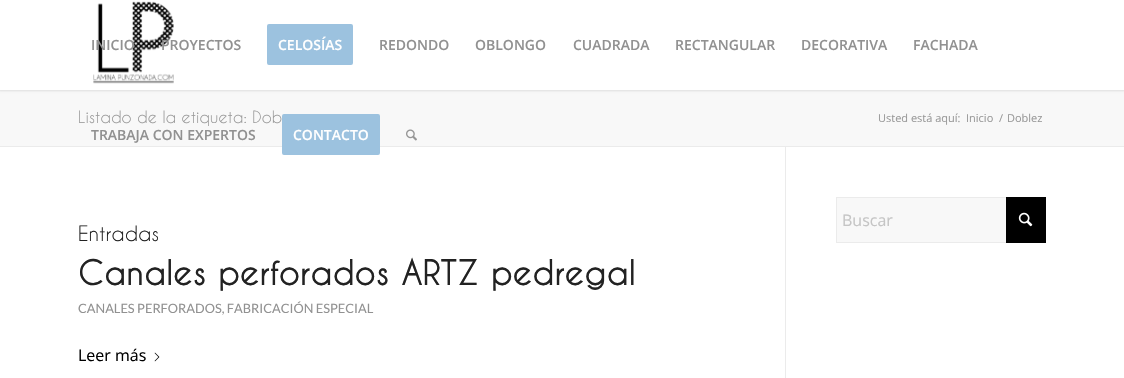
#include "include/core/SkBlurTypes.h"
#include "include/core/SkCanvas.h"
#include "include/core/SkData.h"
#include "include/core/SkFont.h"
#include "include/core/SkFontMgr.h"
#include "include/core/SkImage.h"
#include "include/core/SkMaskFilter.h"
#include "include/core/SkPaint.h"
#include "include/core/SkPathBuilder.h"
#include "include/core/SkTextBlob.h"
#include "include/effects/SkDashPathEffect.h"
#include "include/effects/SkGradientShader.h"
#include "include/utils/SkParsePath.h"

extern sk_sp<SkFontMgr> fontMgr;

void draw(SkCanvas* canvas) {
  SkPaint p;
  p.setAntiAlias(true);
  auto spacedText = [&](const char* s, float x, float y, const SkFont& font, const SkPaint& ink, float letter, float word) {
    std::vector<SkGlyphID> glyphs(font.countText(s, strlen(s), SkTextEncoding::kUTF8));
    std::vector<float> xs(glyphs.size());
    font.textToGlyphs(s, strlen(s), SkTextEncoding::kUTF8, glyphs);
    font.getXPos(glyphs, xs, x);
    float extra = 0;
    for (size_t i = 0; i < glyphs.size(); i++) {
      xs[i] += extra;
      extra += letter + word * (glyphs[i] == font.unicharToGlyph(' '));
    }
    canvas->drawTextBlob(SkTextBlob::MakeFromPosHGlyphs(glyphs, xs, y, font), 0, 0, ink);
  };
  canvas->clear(SK_ColorWHITE);
  p.setColor(SkColorSetRGB(248, 248, 248));
  canvas->drawRect(SkRect::MakeLTRB(0, 90, 1124, 146), p);
  p.setColor(SkColorSetARGB(26, 0, 0, 0));
  p.setMaskFilter(SkMaskFilter::MakeBlur(kNormal_SkBlurStyle, 1));
  canvas->drawRect(SkRect::MakeLTRB(-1, -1, 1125, 91), p);
  p.setMaskFilter(nullptr);
  p.setColor(SK_ColorWHITE);
  canvas->drawRect(SkRect::MakeLTRB(0, 0, 1124, 90), p);
  canvas->drawImageRect(SkImages::DeferredFromEncodedData(SkData::MakeFromFileName("images/1.png")), SkRect::MakeLTRB(93, 1, 174, 84), SkSamplingOptions());
  p.setColor(SkColorSetRGB(156, 194, 223));
  canvas->drawRoundRect(SkRect::MakeLTRB(268, 25, 352, 64), 1, 1, p);
  p.setStyle(SkPaint::kStroke_Style);
  p.setStrokeWidth(2);
  canvas->drawRoundRect(SkRect::MakeLTRB(268, 25, 352, 64), 1, 1, p);
  p.setStyle(SkPaint::kFill_Style);
  p.setColor(SkColorSetRGB(235, 235, 235));
  canvas->drawRect(SkRect::MakeLTRB(0, 146, 1124, 147), p);
  p.setColor(SkColorSetRGB(156, 194, 223));
  canvas->drawRoundRect(SkRect::MakeLTRB(283, 115, 379, 154), 1, 1, p);
  p.setStyle(SkPaint::kStroke_Style);
  canvas->drawRoundRect(SkRect::MakeLTRB(283, 115, 379, 154), 1, 1, p);
  canvas->drawImageRect(SkImages::DeferredFromEncodedData(SkData::MakeFromFileName("images/2.png")), SkRect::MakeLTRB(406, 129, 417, 141), SkSamplingOptions());
  p.setStyle(SkPaint::kFill_Style);
  p.setColor(SkColorSetRGB(248, 248, 248));
  canvas->drawRect(SkRect::MakeLTRB(837, 198, 1006, 242), p);
  p.setStyle(SkPaint::kStroke_Style);
  p.setStrokeWidth(1);
  p.setColor(SkColorSetRGB(235, 235, 235));
  canvas->drawRect(SkRect::MakeLTRB(836.5f, 197.5f, 1045.5f, 242.5f), p);
  p.setStyle(SkPaint::kFill_Style);
  p.setColor(SK_ColorBLACK);
  canvas->drawRect(SkRect::MakeLTRB(1006, 197, 1046, 243), p);
  canvas->drawImageRect(SkImages::DeferredFromEncodedData(SkData::MakeFromFileName("images/3.png")), SkRect::MakeLTRB(1018, 212, 1033, 227), SkSamplingOptions());
  p.setColor(SkColorSetRGB(235, 235, 235));
  canvas->drawRect(SkRect::MakeLTRB(785, 147, 786, 378), p);
  canvas->drawImageRect(SkImages::DeferredFromEncodedData(SkData::MakeFromFileName("images/4.png")), SkRect::MakeLTRB(154, 352, 160, 362), SkSamplingOptions());
  SkFont font1(fontMgr->matchFamilyStyle("Open Sans", SkFontStyle(600, SkFontStyle::kNormal_Width, SkFontStyle::kUpright_Slant)), 14);
  font1.setSubpixel(true);
  p.setColor(SkColorSetRGB(145, 145, 145));
  canvas->drawString("INICIO", 91, 50, font1, p);
  canvas->drawString("PROYECTOS", 161, 50, font1, p);
  p.setColor(SK_ColorWHITE);
  canvas->drawString("CELOSÍAS", 278, 50, font1, p);
  p.setColor(SkColorSetRGB(145, 145, 145));
  canvas->drawString("REDONDO", 379, 50, font1, p);
  canvas->drawString("OBLONGO", 475, 50, font1, p);
  canvas->drawString("CUADRADA", 573, 50, font1, p);
  canvas->drawString("RECTANGULAR", 675, 50, font1, p);
  canvas->drawString("DECORATIVA", 801, 50, font1, p);
  canvas->drawString("FACHADA", 913, 50, font1, p);
  canvas->drawString("TRABAJA CON EXPERTOS", 91, 140, font1, p);
  p.setColor(SK_ColorWHITE);
  canvas->drawString("CONTACTO", 293, 140, font1, p);
  SkFont font2(fontMgr->matchFamilyStyle("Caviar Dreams", SkFontStyle::Normal()), 16);
  font2.setSubpixel(true);
  p.setColor(SkColorSetRGB(153, 153, 153));
  canvas->drawString("Listado de la etiqueta: Dob", 78, 123, font2, p);
  SkFont font3(fontMgr->matchFamilyStyle("Open Sans", SkFontStyle::Normal()), 11);
  font3.setSubpixel(true);
  canvas->drawString("Usted está aquí:", 878, 122, font3, p);
  canvas->drawString("Inicio", 966, 122, font3, p);
  canvas->drawString("/", 999, 122, font3, p);
  canvas->drawString("Doblez", 1007, 122, font3, p);
  SkFont font4(fontMgr->matchFamilyStyle("Open Sans", SkFontStyle::Normal()), 16);
  font4.setSubpixel(true);
  p.setColor(SkColorSetRGB(197, 197, 197));
  canvas->drawString("Buscar", 842, 226, font4, p);
  SkFont font5(fontMgr->matchFamilyStyle("Caviar Dreams", SkFontStyle::Normal()), 20);
  font5.setSubpixel(true);
  p.setColor(SkColorSetRGB(34, 34, 34));
  canvas->drawString("Entradas", 78, 241, font5, p);
  SkFont font6(fontMgr->matchFamilyStyle("Caviar Dreams", SkFontStyle::Bold()), 32);
  font6.setSubpixel(true);
  spacedText("Canales perforados ARTZ pedregal", 78, 285, font6, p, 1, 0);
  SkFont font7(fontMgr->matchFamilyStyle("Lato", SkFontStyle::Normal()), 12.8f);
  font7.setSubpixel(true);
  p.setColor(SkColorSetRGB(145, 145, 145));
  canvas->drawString("CANALES PERFORADOS, FABRICACIÓN ESPECIAL", 78, 313, font7, p);
  p.setColor(SK_ColorBLACK);
  canvas->drawString("Leer más", 78, 361, font4, p);
}
